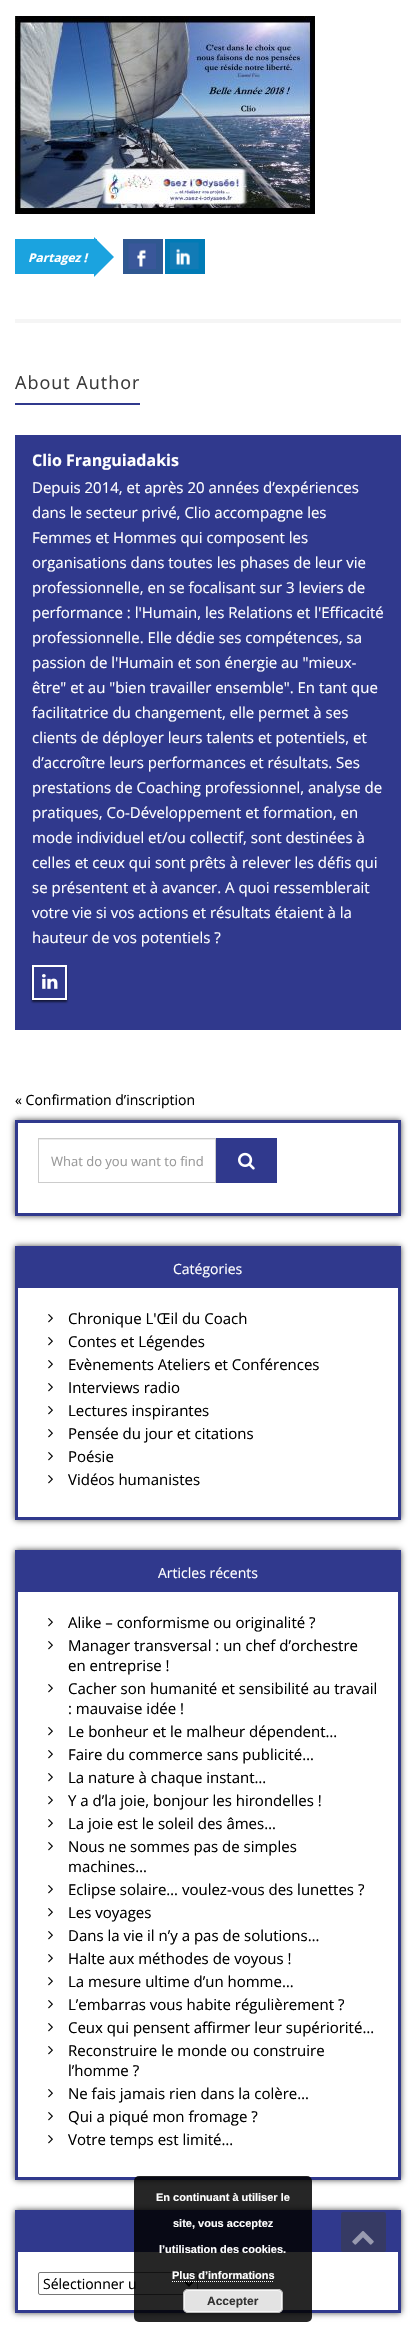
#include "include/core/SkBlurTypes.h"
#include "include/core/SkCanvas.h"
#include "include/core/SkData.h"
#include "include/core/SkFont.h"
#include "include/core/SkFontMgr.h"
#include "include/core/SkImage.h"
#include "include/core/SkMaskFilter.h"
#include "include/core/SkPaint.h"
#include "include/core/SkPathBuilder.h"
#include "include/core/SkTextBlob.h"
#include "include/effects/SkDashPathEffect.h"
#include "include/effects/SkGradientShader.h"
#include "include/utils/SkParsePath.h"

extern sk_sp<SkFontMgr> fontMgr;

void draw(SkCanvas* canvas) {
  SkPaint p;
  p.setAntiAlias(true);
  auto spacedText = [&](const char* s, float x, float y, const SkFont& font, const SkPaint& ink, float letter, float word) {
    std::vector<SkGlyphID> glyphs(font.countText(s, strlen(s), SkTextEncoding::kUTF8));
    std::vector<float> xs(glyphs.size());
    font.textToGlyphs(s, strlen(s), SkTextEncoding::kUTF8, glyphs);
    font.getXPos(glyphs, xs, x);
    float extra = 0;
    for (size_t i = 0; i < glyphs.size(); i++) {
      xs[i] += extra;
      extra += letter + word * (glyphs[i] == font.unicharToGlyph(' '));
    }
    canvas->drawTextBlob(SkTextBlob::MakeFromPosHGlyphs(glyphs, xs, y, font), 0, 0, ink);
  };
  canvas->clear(SK_ColorWHITE);
  canvas->drawImageRect(SkImages::DeferredFromEncodedData(SkData::MakeFromFileName("images/1.png")), SkRect::MakeLTRB(15, 16, 315, 214), SkSamplingOptions());
  p.setColor(SkColorSetRGB(27, 163, 223));
  canvas->drawRect(SkRect::MakeLTRB(15, 239, 97, 274), p);
  canvas->drawPath(SkPathBuilder().moveTo(94, 277).lineTo(94, 237).lineTo(114, 257).close().detach(), p);
  p.setColor(SkColorSetRGB(48, 88, 145));
  canvas->drawRect(SkRect::MakeLTRB(123, 239, 163, 274), p);
  canvas->drawImageRect(SkImages::DeferredFromEncodedData(SkData::MakeFromFileName("images/2.png")), SkRect::MakeLTRB(128, 243, 156, 269), SkSamplingOptions());
  p.setColor(SkColorSetRGB(0, 123, 182));
  canvas->drawRect(SkRect::MakeLTRB(165, 239, 205, 274), p);
  canvas->drawImageRect(SkImages::DeferredFromEncodedData(SkData::MakeFromFileName("images/3.png")), SkRect::MakeLTRB(170, 242, 199, 269), SkSamplingOptions());
  p.setColor(SkColorSetRGB(245, 245, 245));
  canvas->drawRect(SkRect::MakeLTRB(15, 319, 401, 323), p);
  p.setColor(SkColorSetRGB(48, 57, 141));
  canvas->drawRect(SkRect::MakeLTRB(15, 403, 140, 405), p);
  canvas->drawRect(SkRect::MakeLTRB(15, 435, 401, 1030), p);
  canvas->save();
  canvas->clipPath(SkPathBuilder(SkPathFillType::kEvenOdd).moveTo(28, 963).lineTo(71, 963).lineTo(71, 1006).lineTo(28, 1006).close().moveTo(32, 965).lineTo(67, 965).lineTo(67, 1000).lineTo(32, 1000).close().detach(), true);
  p.setColor(SkColorSetARGB(153, 0, 0, 0));
  p.setMaskFilter(SkMaskFilter::MakeBlur(kNormal_SkBlurStyle, 1));
  canvas->drawRect(SkRect::MakeLTRB(32, 967, 67, 1002), p);
  p.setMaskFilter(nullptr);
  canvas->restore();
  p.setStyle(SkPaint::kStroke_Style);
  p.setStrokeWidth(2);
  p.setColor(SK_ColorWHITE);
  canvas->drawRect(SkRect::MakeLTRB(33, 966, 66, 999), p);
  canvas->drawImageRect(SkImages::DeferredFromEncodedData(SkData::MakeFromFileName("images/4.png")), SkRect::MakeLTRB(42, 974, 58, 989), SkSamplingOptions());
  canvas->save();
  canvas->clipPath(SkPathBuilder(SkPathFillType::kEvenOdd).moveTo(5, 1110).lineTo(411, 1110).lineTo(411, 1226).lineTo(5, 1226).close().moveTo(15, 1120).lineTo(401, 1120).lineTo(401, 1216).lineTo(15, 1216).close().detach(), true);
  p.setStyle(SkPaint::kFill_Style);
  p.setColor(SkColorSetARGB(179, 0, 0, 0));
  p.setMaskFilter(SkMaskFilter::MakeBlur(kNormal_SkBlurStyle, 3));
  canvas->drawRect(SkRect::MakeLTRB(15, 1120, 401, 1216), p);
  p.setMaskFilter(nullptr);
  canvas->restore();
  p.setStyle(SkPaint::kStroke_Style);
  p.setStrokeWidth(3);
  p.setColor(SkColorSetRGB(48, 57, 141));
  canvas->drawRect(SkRect::MakeLTRB(16.5f, 1121.5f, 399.5f, 1214.5f), p);
  p.setStyle(SkPaint::kFill_Style);
  p.setColor(SkColorSetRGB(236, 236, 236));
  canvas->drawRect(SkRect::MakeLTRB(39, 1139, 215, 1140), p);
  p.setStyle(SkPaint::kStroke_Style);
  p.setStrokeWidth(1);
  p.setColor(SkColorSetRGB(204, 204, 204));
  canvas->drawRect(SkRect::MakeLTRB(38.5f, 1138.5f, 215.5f, 1182.5f), p);
  p.setStyle(SkPaint::kFill_Style);
  p.setColor(SkColorSetRGB(48, 57, 141));
  canvas->drawRect(SkRect::MakeLTRB(216, 1138, 277, 1183), p);
  canvas->drawImageRect(SkImages::DeferredFromEncodedData(SkData::MakeFromFileName("images/5.png")), SkRect::MakeLTRB(238, 1152, 255, 1170), SkSamplingOptions());
  canvas->save();
  canvas->clipPath(SkPathBuilder(SkPathFillType::kEvenOdd).moveTo(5, 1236).lineTo(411, 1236).lineTo(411, 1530).lineTo(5, 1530).close().moveTo(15, 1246).lineTo(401, 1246).lineTo(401, 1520).lineTo(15, 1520).close().detach(), true);
  p.setColor(SkColorSetARGB(179, 0, 0, 0));
  p.setMaskFilter(SkMaskFilter::MakeBlur(kNormal_SkBlurStyle, 3));
  canvas->drawRect(SkRect::MakeLTRB(15, 1246, 401, 1520), p);
  p.setMaskFilter(nullptr);
  canvas->restore();
  p.setStyle(SkPaint::kStroke_Style);
  p.setStrokeWidth(3);
  p.setColor(SkColorSetRGB(48, 57, 141));
  canvas->drawRect(SkRect::MakeLTRB(16.5f, 1247.5f, 399.5f, 1518.5f), p);
  p.setStyle(SkPaint::kFill_Style);
  canvas->drawRect(SkRect::MakeLTRB(18, 1249, 398, 1288), p);
  canvas->drawImageRect(SkImages::DeferredFromEncodedData(SkData::MakeFromFileName("images/6.png")), SkRect::MakeLTRB(48, 1314, 53, 1323), SkSamplingOptions());
  canvas->drawImageRect(SkImages::DeferredFromEncodedData(SkData::MakeFromFileName("images/6.png")), SkRect::MakeLTRB(48, 1337, 53, 1346), SkSamplingOptions());
  canvas->drawImageRect(SkImages::DeferredFromEncodedData(SkData::MakeFromFileName("images/6.png")), SkRect::MakeLTRB(48, 1360, 53, 1369), SkSamplingOptions());
  canvas->drawImageRect(SkImages::DeferredFromEncodedData(SkData::MakeFromFileName("images/6.png")), SkRect::MakeLTRB(48, 1383, 53, 1392), SkSamplingOptions());
  canvas->drawImageRect(SkImages::DeferredFromEncodedData(SkData::MakeFromFileName("images/6.png")), SkRect::MakeLTRB(48, 1406, 53, 1415), SkSamplingOptions());
  canvas->drawImageRect(SkImages::DeferredFromEncodedData(SkData::MakeFromFileName("images/6.png")), SkRect::MakeLTRB(48, 1429, 53, 1438), SkSamplingOptions());
  canvas->drawImageRect(SkImages::DeferredFromEncodedData(SkData::MakeFromFileName("images/6.png")), SkRect::MakeLTRB(48, 1452, 53, 1461), SkSamplingOptions());
  canvas->drawImageRect(SkImages::DeferredFromEncodedData(SkData::MakeFromFileName("images/6.png")), SkRect::MakeLTRB(48, 1475, 53, 1484), SkSamplingOptions());
  canvas->save();
  canvas->clipPath(SkPathBuilder(SkPathFillType::kEvenOdd).moveTo(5, 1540).lineTo(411, 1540).lineTo(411, 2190).lineTo(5, 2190).close().moveTo(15, 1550).lineTo(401, 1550).lineTo(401, 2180).lineTo(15, 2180).close().detach(), true);
  p.setColor(SkColorSetARGB(179, 0, 0, 0));
  p.setMaskFilter(SkMaskFilter::MakeBlur(kNormal_SkBlurStyle, 3));
  canvas->drawRect(SkRect::MakeLTRB(15, 1550, 401, 2180), p);
  p.setMaskFilter(nullptr);
  canvas->restore();
  p.setStyle(SkPaint::kStroke_Style);
  p.setColor(SkColorSetRGB(48, 57, 141));
  canvas->drawRect(SkRect::MakeLTRB(16.5f, 1551.5f, 399.5f, 2178.5f), p);
  p.setStyle(SkPaint::kFill_Style);
  canvas->drawRect(SkRect::MakeLTRB(18, 1553, 398, 1592), p);
  canvas->drawImageRect(SkImages::DeferredFromEncodedData(SkData::MakeFromFileName("images/6.png")), SkRect::MakeLTRB(48, 1618, 53, 1627), SkSamplingOptions());
  canvas->drawImageRect(SkImages::DeferredFromEncodedData(SkData::MakeFromFileName("images/6.png")), SkRect::MakeLTRB(48, 1641, 53, 1650), SkSamplingOptions());
  canvas->drawImageRect(SkImages::DeferredFromEncodedData(SkData::MakeFromFileName("images/6.png")), SkRect::MakeLTRB(48, 1684, 53, 1693), SkSamplingOptions());
  canvas->drawImageRect(SkImages::DeferredFromEncodedData(SkData::MakeFromFileName("images/6.png")), SkRect::MakeLTRB(48, 1727, 53, 1736), SkSamplingOptions());
  canvas->drawImageRect(SkImages::DeferredFromEncodedData(SkData::MakeFromFileName("images/6.png")), SkRect::MakeLTRB(48, 1750, 53, 1759), SkSamplingOptions());
  canvas->drawImageRect(SkImages::DeferredFromEncodedData(SkData::MakeFromFileName("images/6.png")), SkRect::MakeLTRB(48, 1773, 53, 1782), SkSamplingOptions());
  canvas->drawImageRect(SkImages::DeferredFromEncodedData(SkData::MakeFromFileName("images/6.png")), SkRect::MakeLTRB(48, 1796, 53, 1805), SkSamplingOptions());
  canvas->drawImageRect(SkImages::DeferredFromEncodedData(SkData::MakeFromFileName("images/6.png")), SkRect::MakeLTRB(48, 1819, 53, 1828), SkSamplingOptions());
  canvas->drawImageRect(SkImages::DeferredFromEncodedData(SkData::MakeFromFileName("images/6.png")), SkRect::MakeLTRB(48, 1842, 53, 1851), SkSamplingOptions());
  canvas->drawImageRect(SkImages::DeferredFromEncodedData(SkData::MakeFromFileName("images/6.png")), SkRect::MakeLTRB(48, 1885, 53, 1894), SkSamplingOptions());
  canvas->drawImageRect(SkImages::DeferredFromEncodedData(SkData::MakeFromFileName("images/6.png")), SkRect::MakeLTRB(48, 1908, 53, 1917), SkSamplingOptions());
  canvas->drawImageRect(SkImages::DeferredFromEncodedData(SkData::MakeFromFileName("images/6.png")), SkRect::MakeLTRB(48, 1931, 53, 1940), SkSamplingOptions());
  canvas->drawImageRect(SkImages::DeferredFromEncodedData(SkData::MakeFromFileName("images/6.png")), SkRect::MakeLTRB(48, 1954, 53, 1963), SkSamplingOptions());
  canvas->drawImageRect(SkImages::DeferredFromEncodedData(SkData::MakeFromFileName("images/6.png")), SkRect::MakeLTRB(48, 1977, 53, 1986), SkSamplingOptions());
  canvas->drawImageRect(SkImages::DeferredFromEncodedData(SkData::MakeFromFileName("images/6.png")), SkRect::MakeLTRB(48, 2000, 53, 2009), SkSamplingOptions());
  canvas->drawImageRect(SkImages::DeferredFromEncodedData(SkData::MakeFromFileName("images/6.png")), SkRect::MakeLTRB(48, 2023, 53, 2032), SkSamplingOptions());
  canvas->drawImageRect(SkImages::DeferredFromEncodedData(SkData::MakeFromFileName("images/6.png")), SkRect::MakeLTRB(48, 2046, 53, 2055), SkSamplingOptions());
  canvas->drawImageRect(SkImages::DeferredFromEncodedData(SkData::MakeFromFileName("images/6.png")), SkRect::MakeLTRB(48, 2089, 53, 2098), SkSamplingOptions());
  canvas->drawImageRect(SkImages::DeferredFromEncodedData(SkData::MakeFromFileName("images/6.png")), SkRect::MakeLTRB(48, 2112, 53, 2121), SkSamplingOptions());
  canvas->drawImageRect(SkImages::DeferredFromEncodedData(SkData::MakeFromFileName("images/6.png")), SkRect::MakeLTRB(48, 2135, 53, 2144), SkSamplingOptions());
  canvas->save();
  canvas->clipPath(SkPathBuilder(SkPathFillType::kEvenOdd).moveTo(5, 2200).lineTo(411, 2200).lineTo(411, 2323).lineTo(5, 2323).close().moveTo(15, 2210).lineTo(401, 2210).lineTo(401, 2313).lineTo(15, 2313).close().detach(), true);
  p.setColor(SkColorSetARGB(179, 0, 0, 0));
  p.setMaskFilter(SkMaskFilter::MakeBlur(kNormal_SkBlurStyle, 3));
  canvas->drawRect(SkRect::MakeLTRB(15, 2210, 401, 2313), p);
  p.setMaskFilter(nullptr);
  canvas->restore();
  p.setStyle(SkPaint::kStroke_Style);
  p.setColor(SkColorSetRGB(48, 57, 141));
  canvas->drawRect(SkRect::MakeLTRB(16.5f, 2211.5f, 399.5f, 2311.5f), p);
  p.setStyle(SkPaint::kFill_Style);
  canvas->drawRect(SkRect::MakeLTRB(18, 2213, 398, 2252), p);
  p.setStyle(SkPaint::kStroke_Style);
  p.setStrokeWidth(1);
  p.setColor(SkColorSetRGB(118, 118, 118));
  canvas->drawRoundRect(SkRect::MakeLTRB(38.5f, 2272.5f, 197.5f, 2294.5f), 1.5f, 1.5f, p);
  p.setStrokeWidth(2);
  p.setColor(SK_ColorBLACK);
  canvas->drawPath(SkPathBuilder().moveTo(185, 2281.5f).lineTo(189, 2285.5f).lineTo(193, 2281.5f).detach(), p);
  p.setStyle(SkPaint::kFill_Style);
  p.setColor(SkColorSetRGB(54, 58, 100));
  canvas->drawRoundRect(SkRect::MakeLTRB(341, 2212, 386, 2252), 2, 2, p);
  canvas->drawImageRect(SkImages::DeferredFromEncodedData(SkData::MakeFromFileName("images/7.png")), SkRect::MakeLTRB(352, 2231, 374, 2245), SkSamplingOptions());
  SkFont font1(fontMgr->matchFamilyStyle("Open Sans", SkFontStyle::BoldItalic()), 12);
  font1.setSubpixel(true);
  p.setColor(SK_ColorWHITE);
  canvas->drawString("Partagez !", 28, 262, font1, p);
  SkFont font2(fontMgr->matchFamilyStyle("Open Sans", SkFontStyle::Normal()), 18);
  font2.setSubpixel(true);
  p.setColor(SkColorSetRGB(59, 59, 59));
  spacedText("About Author", 15, 389, font2, p, 1, 0);
  SkFont font3(fontMgr->matchFamilyStyle("Open Sans", SkFontStyle::Bold()), 16);
  font3.setSubpixel(true);
  p.setColor(SK_ColorWHITE);
  canvas->drawString("Clio Franguiadakis", 32, 466, font3, p);
  SkFont font4(fontMgr->matchFamilyStyle("Open Sans", SkFontStyle::Normal()), 15);
  font4.setSubpixel(true);
  canvas->drawString("Depuis 2014, et après 20 années d’expériences", 32, 493, font4, p);
  canvas->drawString("dans le secteur privé, Clio accompagne les", 32, 518, font4, p);
  canvas->drawString("Femmes et Hommes qui composent les", 32, 543, font4, p);
  canvas->drawString("organisations dans toutes les phases de leur vie", 32, 568, font4, p);
  canvas->drawString("professionnelle, en se focalisant sur 3 leviers de", 32, 593, font4, p);
  canvas->drawString("performance : l'Humain, les Relations et l'Efficacité", 32, 618, font4, p);
  canvas->drawString("professionnelle. Elle dédie ses compétences, sa", 32, 643, font4, p);
  canvas->drawString("passion de l'Humain et son énergie au \"mieux-", 32, 668, font4, p);
  canvas->drawString("être\" et au \"bien travailler ensemble\". En tant que", 32, 693, font4, p);
  canvas->drawString("facilitatrice du changement, elle permet à ses", 32, 718, font4, p);
  canvas->drawString("clients de déployer leurs talents et potentiels, et", 32, 743, font4, p);
  canvas->drawString("d’accroître leurs performances et résultats. Ses", 32, 768, font4, p);
  canvas->drawString("prestations de Coaching professionnel, analyse de", 32, 793, font4, p);
  canvas->drawString("pratiques, Co-Développement et formation, en", 32, 818, font4, p);
  canvas->drawString("mode individuel et/ou collectif, sont destinées à", 32, 843, font4, p);
  canvas->drawString("celles et ceux qui sont prêts à relever les défis qui", 32, 868, font4, p);
  canvas->drawString("se présentent et à avancer. A quoi ressemblerait", 32, 893, font4, p);
  canvas->drawString("votre vie si vos actions et résultats étaient à la", 32, 918, font4, p);
  canvas->drawString("hauteur de vos potentiels ?", 32, 943, font4, p);
  SkFont font5(fontMgr->matchFamilyStyle("Open Sans", SkFontStyle::Normal()), 14);
  font5.setSubpixel(true);
  p.setColor(SK_ColorBLACK);
  canvas->drawString("« Confirmation d’inscription", 15, 1105, font5, p);
  SkFont font6(fontMgr->matchFamilyStyle("Open Sans", SkFontStyle::Normal()), 13);
  font6.setSubpixel(true);
  p.setColor(SkColorSetRGB(153, 153, 153));
  canvas->drawString("What do you want to find", 51, 1166, font6, p);
  p.setColor(SK_ColorWHITE);
  canvas->drawString("Catégories", 173, 1274, font5, p);
  p.setColor(SK_ColorBLACK);
  canvas->drawString("Chronique L'Œil du Coach", 68, 1324, font4, p);
  canvas->drawString("Contes et Légendes", 68, 1347, font4, p);
  canvas->drawString("Evènements Ateliers et Conférences", 68, 1370, font4, p);
  canvas->drawString("Interviews radio", 68, 1393, font4, p);
  canvas->drawString("Lectures inspirantes", 68, 1416, font4, p);
  canvas->drawString("Pensée du jour et citations", 68, 1439, font4, p);
  canvas->drawString("Poésie", 68, 1462, font4, p);
  canvas->drawString("Vidéos humanistes", 68, 1485, font4, p);
  p.setColor(SK_ColorWHITE);
  canvas->drawString("Articles récents", 158, 1578, font5, p);
  p.setColor(SK_ColorBLACK);
  canvas->drawString("Alike – conformisme ou originalité ?", 68, 1628, font4, p);
  canvas->drawString("Manager transversal : un chef d’orchestre", 68, 1651, font4, p);
  canvas->drawString("en entreprise !", 68, 1671, font4, p);
  canvas->drawString("Cacher son humanité et sensibilité au travail", 68, 1694, font4, p);
  canvas->drawString(": mauvaise idée !", 68, 1714, font4, p);
  canvas->drawString("Le bonheur et le malheur dépendent…", 68, 1737, font4, p);
  canvas->drawString("Faire du commerce sans publicité…", 68, 1760, font4, p);
  canvas->drawString("La nature à chaque instant…", 68, 1783, font4, p);
  canvas->drawString("Y a d’la joie, bonjour les hirondelles !", 68, 1806, font4, p);
  canvas->drawString("La joie est le soleil des âmes…", 68, 1829, font4, p);
  canvas->drawString("Nous ne sommes pas de simples", 68, 1852, font4, p);
  canvas->drawString("machines…", 68, 1872, font4, p);
  canvas->drawString("Eclipse solaire… voulez-vous des lunettes ?", 68, 1895, font4, p);
  canvas->drawString("Les voyages", 68, 1918, font4, p);
  canvas->drawString("Dans la vie il n’y a pas de solutions…", 68, 1941, font4, p);
  canvas->drawString("Halte aux méthodes de voyous !", 68, 1964, font4, p);
  canvas->drawString("La mesure ultime d’un homme…", 68, 1987, font4, p);
  canvas->drawString("L’embarras vous habite régulièrement ?", 68, 2010, font4, p);
  canvas->drawString("Ceux qui pensent affirmer leur supériorité…", 68, 2033, font4, p);
  canvas->drawString("Reconstruire le monde ou construire", 68, 2056, font4, p);
  canvas->drawString("l’homme ?", 68, 2076, font4, p);
  canvas->drawString("Ne fais jamais rien dans la colère…", 68, 2099, font4, p);
  canvas->drawString("Qui a piqué mon fromage ?", 68, 2122, font4, p);
  canvas->drawString("Votre temps est limité…", 68, 2145, font4, p);
  canvas->drawString("Sélectionner u", 43, 2289, font5, p);
  p.setColor(SkColorSetARGB(217, 0, 0, 0));
  canvas->drawRoundRect(SkRect::MakeLTRB(134, 2176, 312, 2322), 5, 5, p);
  SkFont font7(fontMgr->matchFamilyStyle("Liberation Sans", SkFontStyle::Bold()), 11);
  font7.setSubpixel(true);
  p.setColor(SK_ColorWHITE);
  canvas->drawString("En continuant à utiliser le", 156, 2201, font7, p);
  canvas->drawString("site, vous acceptez", 173, 2227, font7, p);
  canvas->drawString("l’utilisation des cookies.", 159, 2253, font7, p);
  canvas->drawString("Plus d’informations", 172, 2279, font7, p);
  p.setStyle(SkPaint::kStroke_Style);
  p.setStrokeWidth(1);
  p.setPathEffect(SkDashPathEffect::Make({{1, 1}}, 0));
  canvas->drawPath(SkPathBuilder().moveTo(172, 2281.5f).lineTo(274, 2281.5f).detach(), p);
  p.setPathEffect(nullptr);
  p.setStyle(SkPaint::kFill_Style);
  p.setColor(SkColorSetRGB(227, 227, 227));
  canvas->drawRoundRect(SkRect::MakeLTRB(183, 2289, 283, 2313), 5, 5, p);
  p.setStyle(SkPaint::kStroke_Style);
  p.setColor(SkColorSetRGB(246, 246, 246));
  canvas->drawRoundRect(SkRect::MakeLTRB(184.5f, 2290.5f, 281.5f, 2311.5f), 3.5f, 3.5f, p);
  p.setColor(SkColorSetRGB(187, 187, 187));
  canvas->drawRoundRect(SkRect::MakeLTRB(183.5f, 2289.5f, 282.5f, 2312.5f), 4.5f, 4.5f, p);
  SkFont font8(fontMgr->matchFamilyStyle("Liberation Sans", SkFontStyle::Bold()), 12);
  font8.setSubpixel(true);
  p.setStyle(SkPaint::kFill_Style);
  p.setColor(SkColorSetRGB(51, 51, 51));
  canvas->drawString("Accepter", 207, 2305, font8, p);
}
